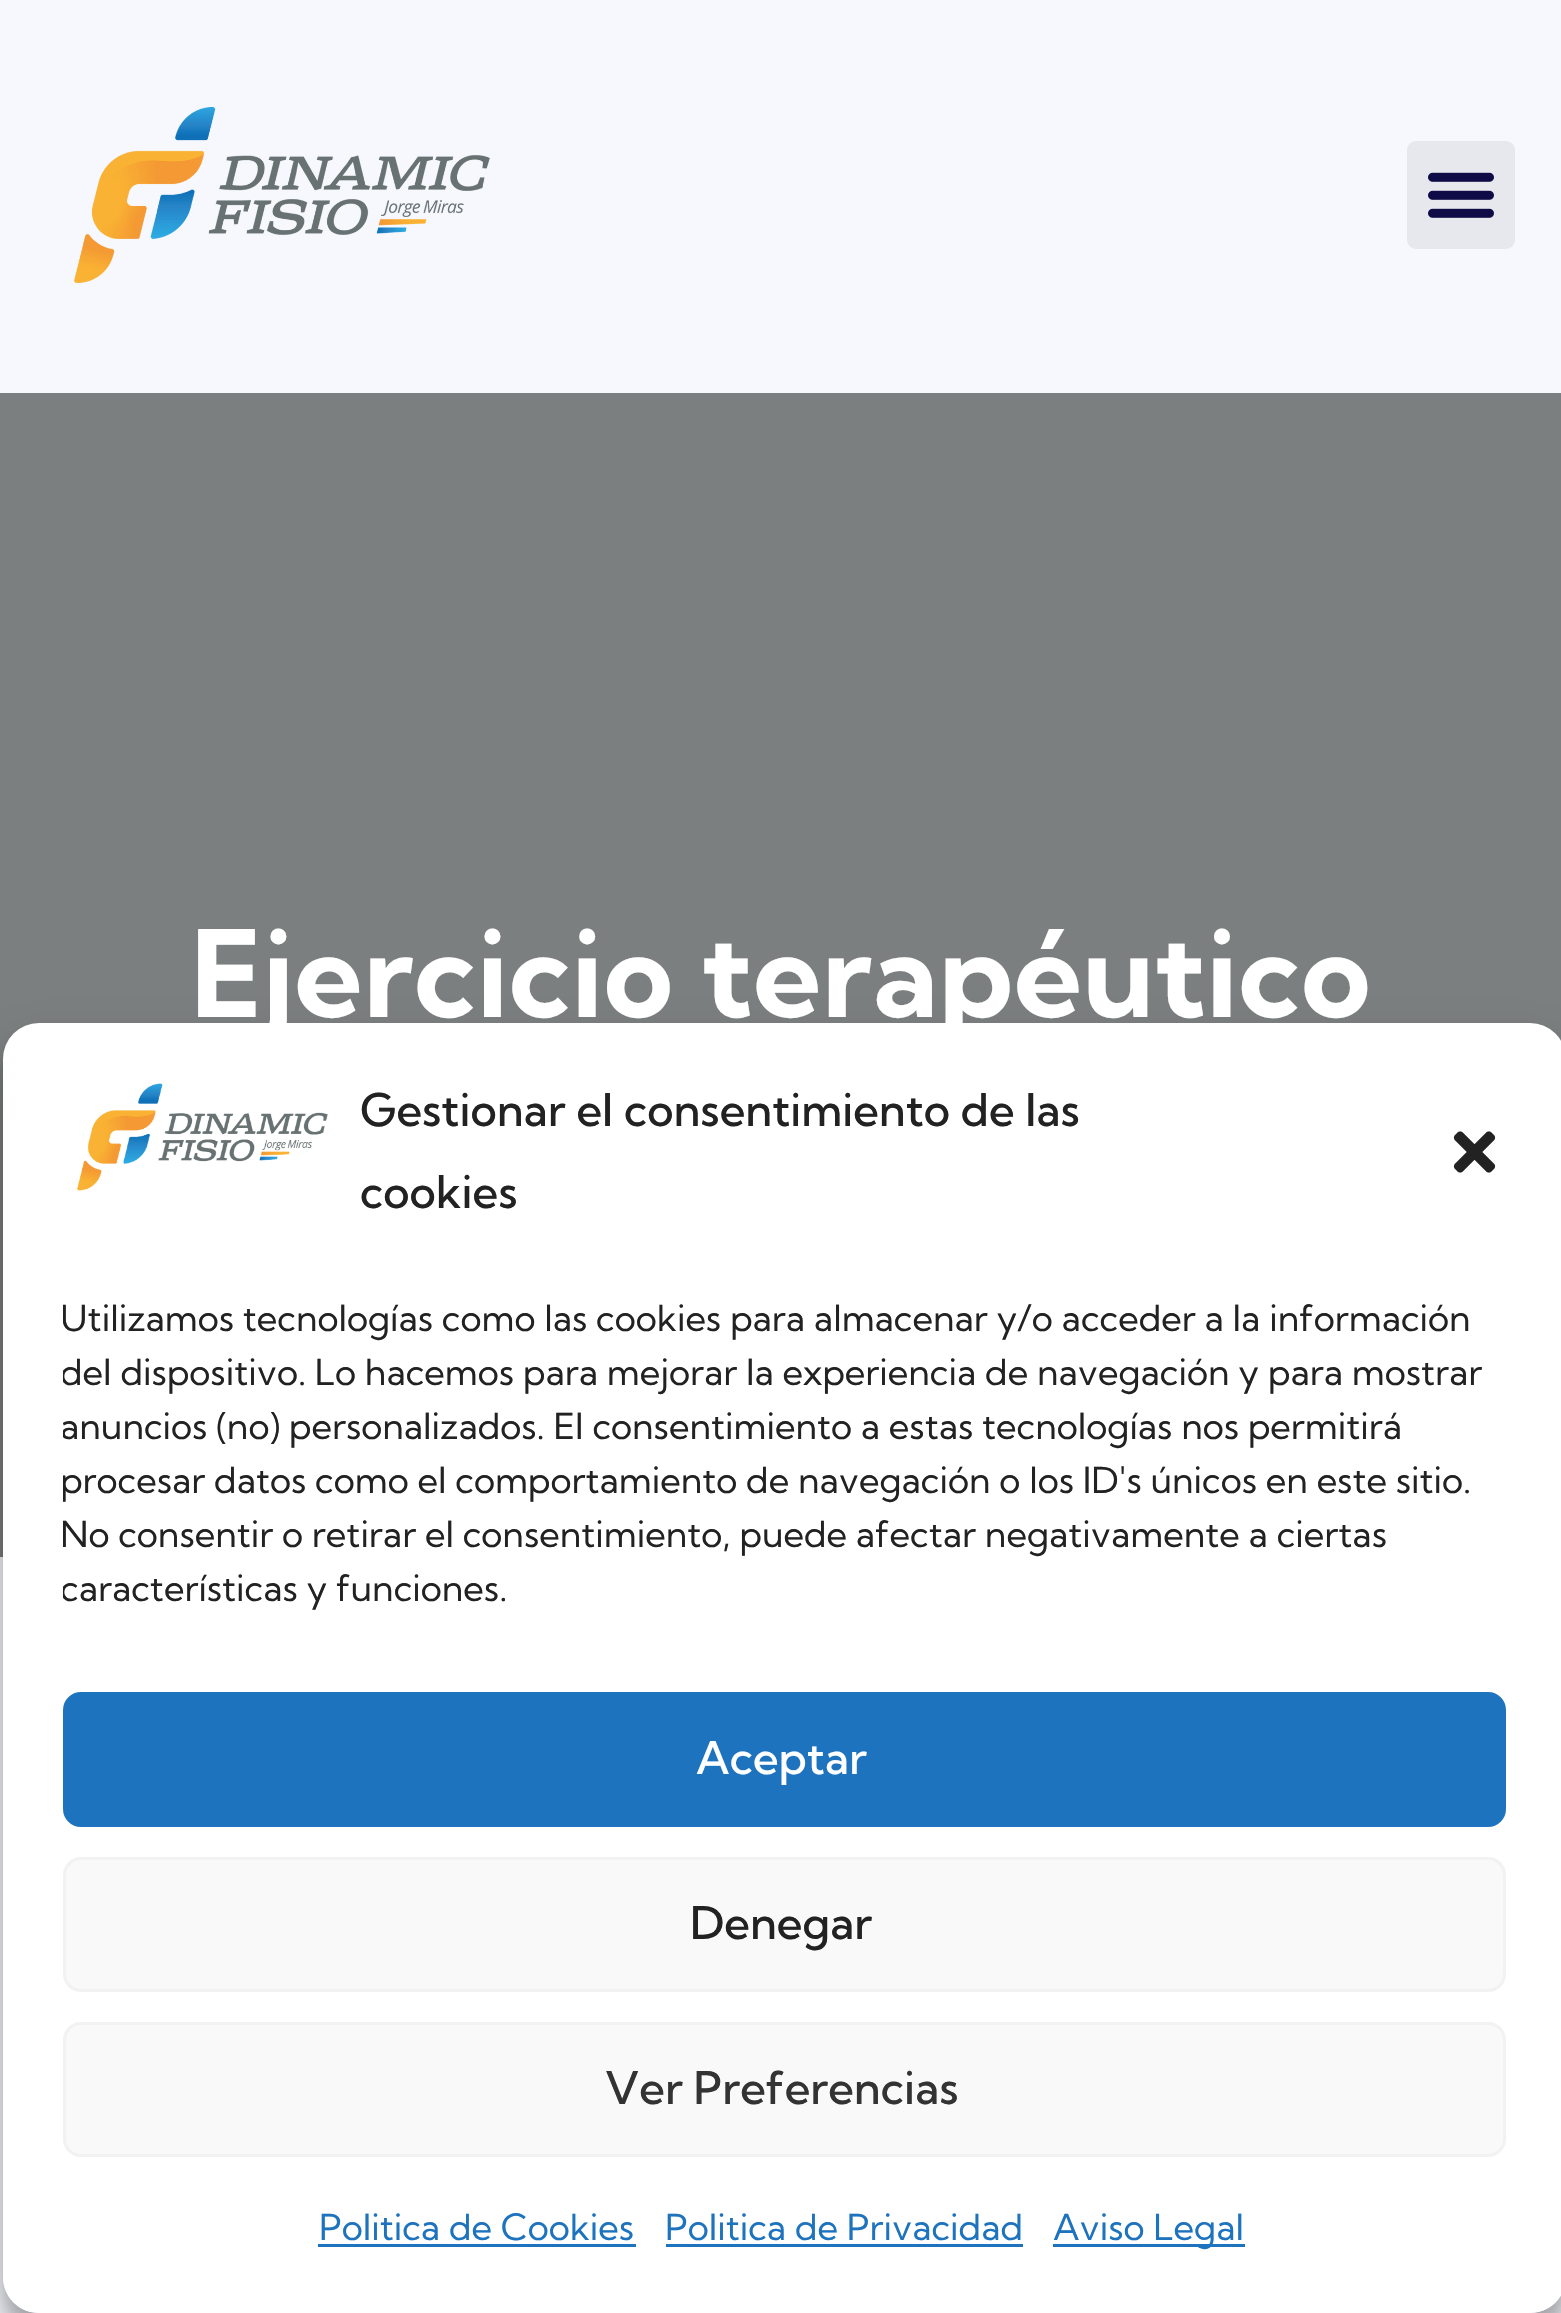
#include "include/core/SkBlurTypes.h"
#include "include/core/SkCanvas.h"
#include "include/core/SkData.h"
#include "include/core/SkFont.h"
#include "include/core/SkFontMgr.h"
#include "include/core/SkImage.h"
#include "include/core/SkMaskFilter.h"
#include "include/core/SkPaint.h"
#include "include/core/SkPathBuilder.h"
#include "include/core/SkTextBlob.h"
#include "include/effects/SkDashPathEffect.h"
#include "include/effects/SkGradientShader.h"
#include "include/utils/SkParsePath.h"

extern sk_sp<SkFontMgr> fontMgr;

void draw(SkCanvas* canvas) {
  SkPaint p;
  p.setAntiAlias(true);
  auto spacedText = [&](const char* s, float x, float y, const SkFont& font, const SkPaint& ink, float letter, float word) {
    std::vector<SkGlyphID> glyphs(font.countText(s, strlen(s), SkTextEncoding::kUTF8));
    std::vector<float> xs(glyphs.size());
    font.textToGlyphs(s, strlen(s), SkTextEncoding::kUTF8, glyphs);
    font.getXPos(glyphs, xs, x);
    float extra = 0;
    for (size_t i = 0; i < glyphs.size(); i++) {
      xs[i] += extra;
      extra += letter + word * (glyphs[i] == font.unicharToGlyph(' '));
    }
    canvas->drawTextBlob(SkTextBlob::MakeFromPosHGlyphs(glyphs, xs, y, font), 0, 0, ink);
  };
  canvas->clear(SkColorSetRGB(246, 248, 254));
  canvas->drawImageRect(SkImages::DeferredFromEncodedData(SkData::MakeFromFileName("images/1.png")), SkRect::MakeLTRB(74, 107, 490, 283), SkSamplingOptions());
  p.setColor(SkColorSetRGB(230, 232, 237));
  canvas->drawRoundRect(SkRect::MakeLTRB(1407, 141, 1515, 249), 9, 9, p);
  canvas->drawImageRect(SkImages::DeferredFromEncodedData(SkData::MakeFromFileName("images/2.png")), SkRect::MakeLTRB(1428, 172, 1494, 218), SkSamplingOptions());
  p.setColor(SkColorSetRGB(124, 127, 128));
  canvas->drawRect(SkRect::MakeLTRB(0, 393, 1561, 1557), p);
  canvas->save();
  canvas->clipPath(SkPathBuilder(SkPathFillType::kEvenOdd).moveTo(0, 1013).lineTo(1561, 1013).lineTo(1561, 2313).lineTo(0, 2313).close().moveTo(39, 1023).lineTo(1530, 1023).cubicTo(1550, 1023, 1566, 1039, 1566, 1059).lineTo(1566, 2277).cubicTo(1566, 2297, 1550, 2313, 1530, 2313).lineTo(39, 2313).cubicTo(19, 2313, 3, 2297, 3, 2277).lineTo(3, 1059).cubicTo(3, 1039, 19, 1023, 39, 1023).close().detach(), true);
  p.setColor(SkColorSetARGB(59, 0, 0, 0));
  p.setMaskFilter(SkMaskFilter::MakeBlur(kNormal_SkBlurStyle, 9));
  canvas->drawRoundRect(SkRect::MakeLTRB(3, 1041, 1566, 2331), 36, 36, p);
  p.setMaskFilter(nullptr);
  canvas->restore();
  canvas->save();
  canvas->clipPath(SkPathBuilder(SkPathFillType::kEvenOdd).moveTo(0, 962).lineTo(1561, 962).lineTo(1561, 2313).lineTo(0, 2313).close().moveTo(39, 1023).lineTo(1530, 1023).cubicTo(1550, 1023, 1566, 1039, 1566, 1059).lineTo(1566, 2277).cubicTo(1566, 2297, 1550, 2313, 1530, 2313).lineTo(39, 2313).cubicTo(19, 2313, 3, 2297, 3, 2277).lineTo(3, 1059).cubicTo(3, 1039, 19, 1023, 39, 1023).close().detach(), true);
  p.setColor(SkColorSetARGB(48, 0, 0, 0));
  p.setMaskFilter(SkMaskFilter::MakeBlur(kNormal_SkBlurStyle, 30));
  canvas->drawRoundRect(SkRect::MakeLTRB(3, 1053, 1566, 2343), 36, 36, p);
  p.setMaskFilter(nullptr);
  canvas->restore();
  p.setColor(SK_ColorWHITE);
  canvas->drawRoundRect(SkRect::MakeLTRB(3, 1023, 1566, 2313), 36, 36, p);
  canvas->drawImageRect(SkImages::DeferredFromEncodedData(SkData::MakeFromFileName("images/3.png")), SkRect::MakeLTRB(77, 1083, 328, 1191), SkSamplingOptions());
  canvas->drawImageRect(SkImages::DeferredFromEncodedData(SkData::MakeFromFileName("images/4.png")), SkRect::MakeLTRB(1453, 1131, 1496, 1173), SkSamplingOptions());
  p.setColor(SkColorSetRGB(30, 115, 190));
  canvas->drawRoundRect(SkRect::MakeLTRB(64.5f, 1693.5f, 1504.5f, 1825.5f), 16.5f, 16.5f, p);
  p.setStyle(SkPaint::kStroke_Style);
  p.setStrokeWidth(3);
  canvas->drawRoundRect(SkRect::MakeLTRB(64.5f, 1693.5f, 1504.5f, 1825.5f), 16.5f, 16.5f, p);
  p.setStyle(SkPaint::kFill_Style);
  p.setColor(SkColorSetRGB(249, 249, 249));
  canvas->drawRoundRect(SkRect::MakeLTRB(64.5f, 1858.5f, 1504.5f, 1990.5f), 16.5f, 16.5f, p);
  p.setStyle(SkPaint::kStroke_Style);
  p.setColor(SkColorSetRGB(242, 242, 242));
  canvas->drawRoundRect(SkRect::MakeLTRB(64.5f, 1858.5f, 1504.5f, 1990.5f), 16.5f, 16.5f, p);
  p.setStyle(SkPaint::kFill_Style);
  p.setColor(SkColorSetRGB(249, 249, 249));
  canvas->drawRoundRect(SkRect::MakeLTRB(64.5f, 2023.5f, 1504.5f, 2155.5f), 16.5f, 16.5f, p);
  p.setStyle(SkPaint::kStroke_Style);
  p.setColor(SkColorSetRGB(242, 242, 242));
  canvas->drawRoundRect(SkRect::MakeLTRB(64.5f, 2023.5f, 1504.5f, 2155.5f), 16.5f, 16.5f, p);
  p.setStyle(SkPaint::kFill_Style);
  p.setColor(SkColorSetRGB(30, 115, 190));
  canvas->drawRect(SkRect::MakeLTRB(318, 2244, 636, 2247), p);
  canvas->drawRect(SkRect::MakeLTRB(666, 2244, 1023, 2247), p);
  canvas->drawRect(SkRect::MakeLTRB(1053, 2244, 1245, 2247), p);
  SkFont font1(fontMgr->matchFamilyStyle("Kumbh Sans", SkFontStyle::Bold()), 120);
  font1.setSubpixel(true);
  p.setColor(SK_ColorWHITE);
  spacedText("Ejercicio terapéutico", 191, 1017, font1, p, 0.6f, 0);
  SkFont font2(fontMgr->matchFamilyStyle("Kumbh Sans", SkFontStyle(500, SkFontStyle::kNormal_Width, SkFontStyle::kUpright_Slant)), 45);
  font2.setSubpixel(true);
  p.setColor(SkColorSetRGB(34, 34, 34));
  canvas->drawString("Gestionar el consentimiento de las", 360, 1126, font2, p);
  canvas->drawString("cookies", 360, 1208, font2, p);
  canvas->save();
  canvas->clipRect(SkRect::MakeLTRB(63, 1293, 1506, 1632));
  SkFont font3(fontMgr->matchFamilyStyle("Kumbh Sans", SkFontStyle::Normal()), 36);
  font3.setSubpixel(true);
  canvas->drawString("Utilizamos tecnologías como las cookies para almacenar y/o acceder a la información", 60, 1331, font3, p);
  canvas->drawString("del dispositivo. Lo hacemos para mejorar la experiencia de navegación y para mostrar", 60, 1385, font3, p);
  canvas->drawString("anuncios (no) personalizados. El consentimiento a estas tecnologías nos permitirá", 60, 1439, font3, p);
  canvas->drawString("procesar datos como el comportamiento de navegación o los ID's únicos en este sitio.", 60, 1493, font3, p);
  canvas->drawString("No consentir o retirar el consentimiento, puede afectar negativamente a ciertas", 60, 1547, font3, p);
  canvas->drawString("características y funciones.", 60, 1601, font3, p);
  canvas->restore();
  p.setColor(SK_ColorWHITE);
  canvas->drawString("Aceptar", 696, 1774, font2, p);
  p.setColor(SkColorSetRGB(34, 34, 34));
  canvas->drawString("Denegar", 690, 1939, font2, p);
  p.setColor(SkColorSetRGB(51, 51, 51));
  canvas->drawString("Ver Preferencias", 605, 2104, font2, p);
  p.setColor(SkColorSetRGB(30, 115, 190));
  canvas->drawString("Politica de Cookies", 319, 2240, font3, p);
  canvas->drawString("Politica de Privacidad", 665, 2240, font3, p);
  canvas->drawString("Aviso Legal", 1053, 2240, font3, p);
}
